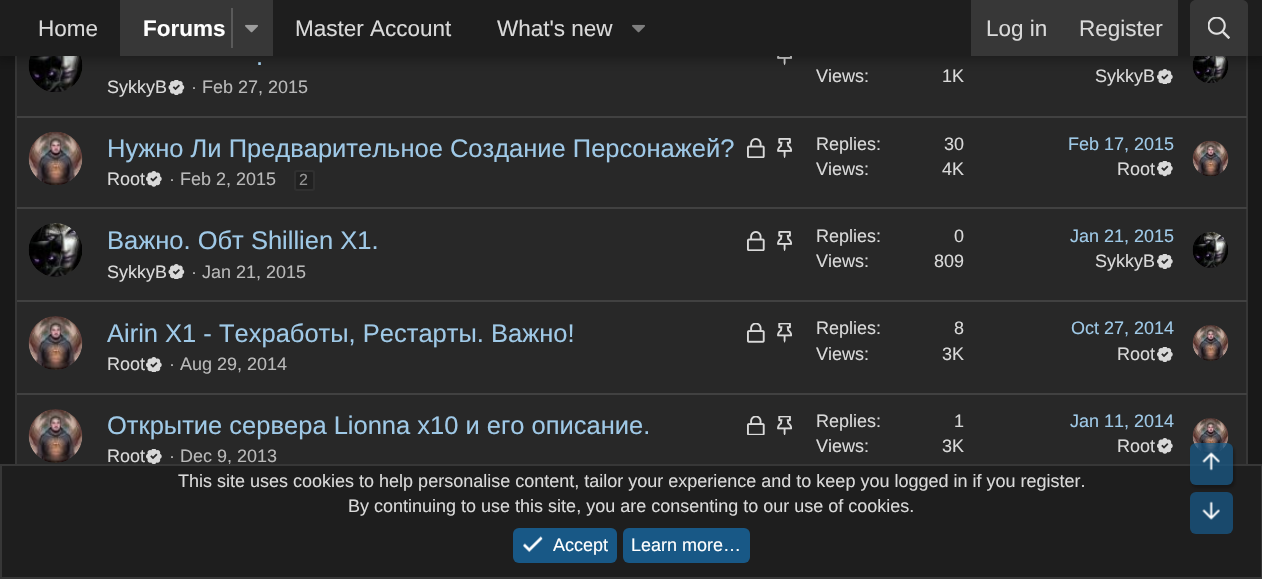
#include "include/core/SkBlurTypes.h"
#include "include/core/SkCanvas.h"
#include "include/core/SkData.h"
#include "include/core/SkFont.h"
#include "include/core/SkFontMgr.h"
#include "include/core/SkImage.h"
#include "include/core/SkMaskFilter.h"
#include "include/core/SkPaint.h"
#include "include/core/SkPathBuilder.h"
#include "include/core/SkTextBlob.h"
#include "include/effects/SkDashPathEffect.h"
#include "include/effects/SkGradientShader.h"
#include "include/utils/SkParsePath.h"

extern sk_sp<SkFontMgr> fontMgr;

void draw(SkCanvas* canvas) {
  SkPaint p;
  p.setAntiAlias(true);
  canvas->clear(SkColorSetRGB(25, 25, 25));
  p.setColor(SkColorSetRGB(40, 40, 40));
  canvas->drawRect(SkRect::MakeLTRB(17, 56, 1246, 464), p);
  p.setStyle(SkPaint::kStroke_Style);
  p.setStrokeWidth(2);
  p.setColor(SkColorSetRGB(55, 55, 55));
  canvas->drawRect(SkRect::MakeLTRB(16, -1, 1247, 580), p);
  canvas->drawImageRect(SkImages::DeferredFromEncodedData(SkData::MakeFromFileName("images/4.png")), SkRect::MakeLTRB(28, 56, 83, 92), SkSamplingOptions());
  canvas->drawImageRect(SkImages::DeferredFromEncodedData(SkData::MakeFromFileName("images/5.png")), SkRect::MakeLTRB(777, 56, 792, 66), SkSamplingOptions());
  canvas->drawImageRect(SkImages::DeferredFromEncodedData(SkData::MakeFromFileName("images/7.png")), SkRect::MakeLTRB(1157, 69, 1173, 84), SkSamplingOptions());
  canvas->drawImageRect(SkImages::DeferredFromEncodedData(SkData::MakeFromFileName("images/8.png")), SkRect::MakeLTRB(1192, 56, 1229, 83), SkSamplingOptions());
  p.setStyle(SkPaint::kFill_Style);
  p.setColor(SkColorSetARGB(77, 0, 0, 0));
  p.setMaskFilter(SkMaskFilter::MakeBlur(kNormal_SkBlurStyle, 6));
  canvas->drawRect(SkRect::MakeLTRB(-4, -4, 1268, 60), p);
  p.setMaskFilter(nullptr);
  p.setColor(SkColorSetRGB(30, 30, 30));
  canvas->drawRect(SkRect::MakeLTRB(0, 0, 1262, 56), p);
  p.setColor(SkColorSetRGB(55, 55, 55));
  canvas->drawRect(SkRect::MakeLTRB(120, 0, 273, 56), p);
  p.setColor(SkColorSetRGB(90, 90, 90));
  canvas->drawRect(SkRect::MakeLTRB(231, 8, 233, 48), p);
  canvas->drawImageRect(SkImages::DeferredFromEncodedData(SkData::MakeFromFileName("images/1.png")), SkRect::MakeLTRB(245, 24, 258, 33), SkSamplingOptions());
  canvas->drawImageRect(SkImages::DeferredFromEncodedData(SkData::MakeFromFileName("images/2.png")), SkRect::MakeLTRB(632, 24, 645, 33), SkSamplingOptions());
  p.setColor(SkColorSetRGB(55, 55, 55));
  canvas->drawRect(SkRect::MakeLTRB(971, 0, 1178, 56), p);
  canvas->drawPath(SkPathBuilder().moveTo(1196, 0).lineTo(1242, 0).cubicTo(1245.5f, 0, 1248, 2.5f, 1248, 6).lineTo(1248, 56).lineTo(1190, 56).lineTo(1190, 6).cubicTo(1190, 2.5f, 1192.5f, 0, 1196, 0).close().detach(), p);
  canvas->drawImageRect(SkImages::DeferredFromEncodedData(SkData::MakeFromFileName("images/3.png")), SkRect::MakeLTRB(1208, 17, 1230, 39), SkSamplingOptions());
  canvas->drawImageRect(SkImages::DeferredFromEncodedData(SkData::MakeFromFileName("images/6.png")), SkRect::MakeLTRB(168, 80, 185, 95), SkSamplingOptions());
  p.setColor(SkColorSetRGB(65, 65, 65));
  canvas->drawRect(SkRect::MakeLTRB(17, 116, 1247, 118), p);
  canvas->drawImageRect(SkImages::DeferredFromEncodedData(SkData::MakeFromFileName("images/9.png")), SkRect::MakeLTRB(28, 131, 83, 185), SkSamplingOptions());
  canvas->drawImageRect(SkImages::DeferredFromEncodedData(SkData::MakeFromFileName("images/10.png")), SkRect::MakeLTRB(747, 138, 765, 158), SkSamplingOptions());
  canvas->drawImageRect(SkImages::DeferredFromEncodedData(SkData::MakeFromFileName("images/11.png")), SkRect::MakeLTRB(777, 138, 792, 158), SkSamplingOptions());
  canvas->drawImageRect(SkImages::DeferredFromEncodedData(SkData::MakeFromFileName("images/12.png")), SkRect::MakeLTRB(146, 171, 162, 187), SkSamplingOptions());
  p.setColor(SkColorSetRGB(33, 33, 33));
  canvas->drawRoundRect(SkRect::MakeLTRB(295, 171, 314, 190), 2, 2, p);
  p.setStyle(SkPaint::kStroke_Style);
  p.setColor(SkColorSetRGB(48, 48, 48));
  canvas->drawRoundRect(SkRect::MakeLTRB(295, 171, 314, 190), 2, 2, p);
  canvas->drawImageRect(SkImages::DeferredFromEncodedData(SkData::MakeFromFileName("images/13.png")), SkRect::MakeLTRB(1157, 161, 1173, 177), SkSamplingOptions());
  canvas->drawImageRect(SkImages::DeferredFromEncodedData(SkData::MakeFromFileName("images/14.png")), SkRect::MakeLTRB(1192, 140, 1229, 176), SkSamplingOptions());
  p.setStyle(SkPaint::kFill_Style);
  p.setColor(SkColorSetRGB(65, 65, 65));
  canvas->drawRect(SkRect::MakeLTRB(17, 207, 1247, 209), p);
  canvas->drawImageRect(SkImages::DeferredFromEncodedData(SkData::MakeFromFileName("images/15.png")), SkRect::MakeLTRB(28, 223, 82, 277), SkSamplingOptions());
  canvas->drawImageRect(SkImages::DeferredFromEncodedData(SkData::MakeFromFileName("images/10.png")), SkRect::MakeLTRB(747, 231, 765, 251), SkSamplingOptions());
  canvas->drawImageRect(SkImages::DeferredFromEncodedData(SkData::MakeFromFileName("images/11.png")), SkRect::MakeLTRB(777, 231, 792, 251), SkSamplingOptions());
  canvas->drawImageRect(SkImages::DeferredFromEncodedData(SkData::MakeFromFileName("images/16.png")), SkRect::MakeLTRB(168, 264, 185, 279), SkSamplingOptions());
  canvas->drawImageRect(SkImages::DeferredFromEncodedData(SkData::MakeFromFileName("images/17.png")), SkRect::MakeLTRB(1157, 254, 1173, 269), SkSamplingOptions());
  canvas->drawImageRect(SkImages::DeferredFromEncodedData(SkData::MakeFromFileName("images/18.png")), SkRect::MakeLTRB(1192, 232, 1228, 268), SkSamplingOptions());
  canvas->drawRect(SkRect::MakeLTRB(17, 300, 1247, 302), p);
  canvas->drawImageRect(SkImages::DeferredFromEncodedData(SkData::MakeFromFileName("images/19.png")), SkRect::MakeLTRB(28, 316, 83, 370), SkSamplingOptions());
  canvas->drawImageRect(SkImages::DeferredFromEncodedData(SkData::MakeFromFileName("images/20.png")), SkRect::MakeLTRB(747, 323, 765, 343), SkSamplingOptions());
  canvas->drawImageRect(SkImages::DeferredFromEncodedData(SkData::MakeFromFileName("images/21.png")), SkRect::MakeLTRB(777, 323, 792, 343), SkSamplingOptions());
  canvas->drawImageRect(SkImages::DeferredFromEncodedData(SkData::MakeFromFileName("images/7.png")), SkRect::MakeLTRB(146, 357, 162, 372), SkSamplingOptions());
  canvas->drawImageRect(SkImages::DeferredFromEncodedData(SkData::MakeFromFileName("images/17.png")), SkRect::MakeLTRB(1157, 347, 1173, 362), SkSamplingOptions());
  canvas->drawImageRect(SkImages::DeferredFromEncodedData(SkData::MakeFromFileName("images/22.png")), SkRect::MakeLTRB(1192, 325, 1229, 361), SkSamplingOptions());
  canvas->drawRect(SkRect::MakeLTRB(17, 393, 1247, 395), p);
  canvas->drawImageRect(SkImages::DeferredFromEncodedData(SkData::MakeFromFileName("images/23.png")), SkRect::MakeLTRB(28, 409, 83, 463), SkSamplingOptions());
  canvas->drawImageRect(SkImages::DeferredFromEncodedData(SkData::MakeFromFileName("images/24.png")), SkRect::MakeLTRB(747, 416, 765, 435), SkSamplingOptions());
  canvas->drawImageRect(SkImages::DeferredFromEncodedData(SkData::MakeFromFileName("images/25.png")), SkRect::MakeLTRB(777, 416, 792, 435), SkSamplingOptions());
  canvas->drawImageRect(SkImages::DeferredFromEncodedData(SkData::MakeFromFileName("images/17.png")), SkRect::MakeLTRB(146, 449, 162, 464), SkSamplingOptions());
  canvas->drawImageRect(SkImages::DeferredFromEncodedData(SkData::MakeFromFileName("images/12.png")), SkRect::MakeLTRB(1157, 438, 1173, 454), SkSamplingOptions());
  canvas->drawImageRect(SkImages::DeferredFromEncodedData(SkData::MakeFromFileName("images/22.png")), SkRect::MakeLTRB(1192, 418, 1229, 454), SkSamplingOptions());
  SkFont font1(fontMgr->matchFamilyStyle("Liberation Sans", SkFontStyle::Normal()), 22.5f);
  font1.setSubpixel(true);
  p.setColor(SkColorSetRGB(217, 217, 217));
  canvas->drawString("Home", 38, 36, font1, p);
  SkFont font2(fontMgr->matchFamilyStyle("Liberation Sans", SkFontStyle::Bold()), 22.5f);
  font2.setSubpixel(true);
  p.setColor(SK_ColorWHITE);
  canvas->drawString("Forums", 143, 36, font2, p);
  p.setColor(SkColorSetRGB(217, 217, 217));
  canvas->drawString("Master Account", 295, 36, font1, p);
  canvas->drawString("What's new", 497, 36, font1, p);
  canvas->drawString("Log in", 986, 36, font1, p);
  canvas->drawString("Register", 1079, 36, font1, p);
  SkFont font3(fontMgr->matchFamilyStyle("Liberation Sans", SkFontStyle::Normal()), 25.5f);
  font3.setSubpixel(true);
  p.setColor(SkColorSetRGB(159, 201, 231));
  canvas->drawString(".", 256, 65, font3, p);
  SkFont font4(fontMgr->matchFamilyStyle("Liberation Sans", SkFontStyle::Normal()), 18);
  font4.setSubpixel(true);
  p.setColor(SkColorSetRGB(217, 217, 217));
  canvas->drawString("SykkyB", 107, 93, font4, p);
  p.setColor(SkColorSetRGB(185, 185, 185));
  canvas->drawString("· Feb 27, 2015", 191, 93, font4, p);
  p.setColor(SkColorSetRGB(217, 217, 217));
  canvas->drawString("Views:", 816, 82, font4, p);
  canvas->drawString("1K", 942, 82, font4, p);
  canvas->drawString("SykkyB", 1095, 82, font4, p);
  p.setColor(SkColorSetRGB(159, 201, 231));
  canvas->drawString("Нужно Ли Предварительное Создание Персонажей?", 107, 157, font3, p);
  p.setColor(SkColorSetRGB(217, 217, 217));
  canvas->drawString("Root", 107, 185, font4, p);
  p.setColor(SkColorSetRGB(185, 185, 185));
  canvas->drawString("· Feb 2, 2015", 169, 185, font4, p);
  SkFont font5(fontMgr->matchFamilyStyle("Liberation Sans", SkFontStyle::Normal()), 16);
  font5.setSubpixel(true);
  p.setColor(SkColorSetRGB(148, 148, 148));
  canvas->drawString("2", 299, 185, font5, p);
  p.setColor(SkColorSetRGB(217, 217, 217));
  canvas->drawString("Replies:", 816, 150, font4, p);
  canvas->drawString("30", 944, 150, font4, p);
  canvas->drawString("Views:", 816, 175, font4, p);
  canvas->drawString("4K", 942, 175, font4, p);
  p.setColor(SkColorSetRGB(159, 201, 231));
  canvas->drawString("Feb 17, 2015", 1068, 150, font4, p);
  p.setColor(SkColorSetRGB(217, 217, 217));
  canvas->drawString("Root", 1117, 175, font4, p);
  p.setColor(SkColorSetRGB(159, 201, 231));
  canvas->drawString("Важно. Обт Shillien X1.", 107, 249, font3, p);
  p.setColor(SkColorSetRGB(217, 217, 217));
  canvas->drawString("SykkyB", 107, 278, font4, p);
  p.setColor(SkColorSetRGB(185, 185, 185));
  canvas->drawString("· Jan 21, 2015", 191, 278, font4, p);
  p.setColor(SkColorSetRGB(217, 217, 217));
  canvas->drawString("Replies:", 816, 242, font4, p);
  canvas->drawString("0", 954, 242, font4, p);
  canvas->drawString("Views:", 816, 267, font4, p);
  canvas->drawString("809", 934, 267, font4, p);
  p.setColor(SkColorSetRGB(159, 201, 231));
  canvas->drawString("Jan 21, 2015", 1070, 242, font4, p);
  p.setColor(SkColorSetRGB(217, 217, 217));
  canvas->drawString("SykkyB", 1095, 267, font4, p);
  p.setColor(SkColorSetRGB(159, 201, 231));
  canvas->drawString("Airin X1 - Техработы, Рестарты. Важно!", 107, 342, font3, p);
  p.setColor(SkColorSetRGB(217, 217, 217));
  canvas->drawString("Root", 107, 370, font4, p);
  p.setColor(SkColorSetRGB(185, 185, 185));
  canvas->drawString("· Aug 29, 2014", 169, 370, font4, p);
  p.setColor(SkColorSetRGB(217, 217, 217));
  canvas->drawString("Replies:", 816, 334, font4, p);
  canvas->drawString("8", 954, 334, font4, p);
  canvas->drawString("Views:", 816, 360, font4, p);
  canvas->drawString("3K", 942, 360, font4, p);
  p.setColor(SkColorSetRGB(159, 201, 231));
  canvas->drawString("Oct 27, 2014", 1071, 334, font4, p);
  p.setColor(SkColorSetRGB(217, 217, 217));
  canvas->drawString("Root", 1117, 360, font4, p);
  p.setColor(SkColorSetRGB(159, 201, 231));
  canvas->drawString("Открытие сервера Lionna x10 и его описание.", 107, 434, font3, p);
  p.setColor(SkColorSetRGB(217, 217, 217));
  canvas->drawString("Root", 107, 462, font4, p);
  p.setColor(SkColorSetRGB(185, 185, 185));
  canvas->drawString("· Dec 9, 2013", 169, 462, font4, p);
  p.setColor(SkColorSetRGB(217, 217, 217));
  canvas->drawString("Replies:", 816, 427, font4, p);
  canvas->drawString("1", 954, 427, font4, p);
  canvas->drawString("Views:", 816, 452, font4, p);
  canvas->drawString("3K", 942, 452, font4, p);
  p.setColor(SkColorSetRGB(159, 201, 231));
  canvas->drawString("Jan 11, 2014", 1070, 427, font4, p);
  p.setColor(SkColorSetRGB(217, 217, 217));
  canvas->drawString("Root", 1117, 452, font4, p);
  p.setColor(SkColorSetRGB(30, 30, 30));
  canvas->drawRect(SkRect::MakeLTRB(1, 465, 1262, 578), p);
  p.setStyle(SkPaint::kStroke_Style);
  p.setColor(SkColorSetRGB(55, 55, 55));
  canvas->drawRect(SkRect::MakeLTRB(1, 465, 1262, 578), p);
  p.setStyle(SkPaint::kFill_Style);
  p.setColor(SkColorSetRGB(217, 217, 217));
  canvas->drawString("This site uses cookies to help personalise content, tailor your experience and to keep you logged in if you register.", 178, 487, font4, p);
  canvas->drawString("By continuing to use this site, you are consenting to our use of cookies.", 348, 512, font4, p);
  p.setColor(SkColorSetRGB(24, 88, 134));
  canvas->drawRoundRect(SkRect::MakeLTRB(513, 528, 617, 563), 6, 6, p);
  canvas->drawImageRect(SkImages::DeferredFromEncodedData(SkData::MakeFromFileName("images/26.png")), SkRect::MakeLTRB(523, 536, 543, 553), SkSamplingOptions());
  p.setColor(SK_ColorWHITE);
  canvas->drawString("Accept", 553, 551, font4, p);
  p.setColor(SkColorSetRGB(24, 88, 134));
  canvas->drawRoundRect(SkRect::MakeLTRB(623, 528, 750, 563), 6, 6, p);
  p.setColor(SK_ColorWHITE);
  canvas->drawString("Learn more…", 631, 551, font4, p);
  canvas->save();
  canvas->clipPath(SkPathBuilder(SkPathFillType::kEvenOdd).moveTo(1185, 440).lineTo(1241, 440).lineTo(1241, 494).lineTo(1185, 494).close().moveTo(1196, 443).lineTo(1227, 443).cubicTo(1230.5f, 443, 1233, 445.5f, 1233, 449).lineTo(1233, 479).cubicTo(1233, 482.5f, 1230.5f, 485, 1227, 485).lineTo(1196, 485).cubicTo(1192.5f, 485, 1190, 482.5f, 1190, 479).lineTo(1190, 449).cubicTo(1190, 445.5f, 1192.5f, 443, 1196, 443).close().detach(), true);
  p.setColor(SkColorSetARGB(64, 0, 0, 0));
  p.setMaskFilter(SkMaskFilter::MakeBlur(kNormal_SkBlurStyle, 1.5f));
  canvas->drawRoundRect(SkRect::MakeLTRB(1191, 446, 1235, 488), 6, 6, p);
  p.setMaskFilter(nullptr);
  canvas->restore();
  p.setColor(SkColorSetARGB(191, 24, 88, 134));
  canvas->drawRoundRect(SkRect::MakeLTRB(1190, 443, 1233, 485), 6, 6, p);
  canvas->drawImageRect(SkImages::DeferredFromEncodedData(SkData::MakeFromFileName("images/27.png")), SkRect::MakeLTRB(1202, 452, 1220, 471), SkSamplingOptions());
  p.setColor(SkColorSetRGB(25, 73, 108));
  canvas->drawRoundRect(SkRect::MakeLTRB(1190, 492, 1233, 534), 6, 6, p);
  canvas->drawImageRect(SkImages::DeferredFromEncodedData(SkData::MakeFromFileName("images/28.png")), SkRect::MakeLTRB(1202, 501, 1220, 520), SkSamplingOptions());
}
